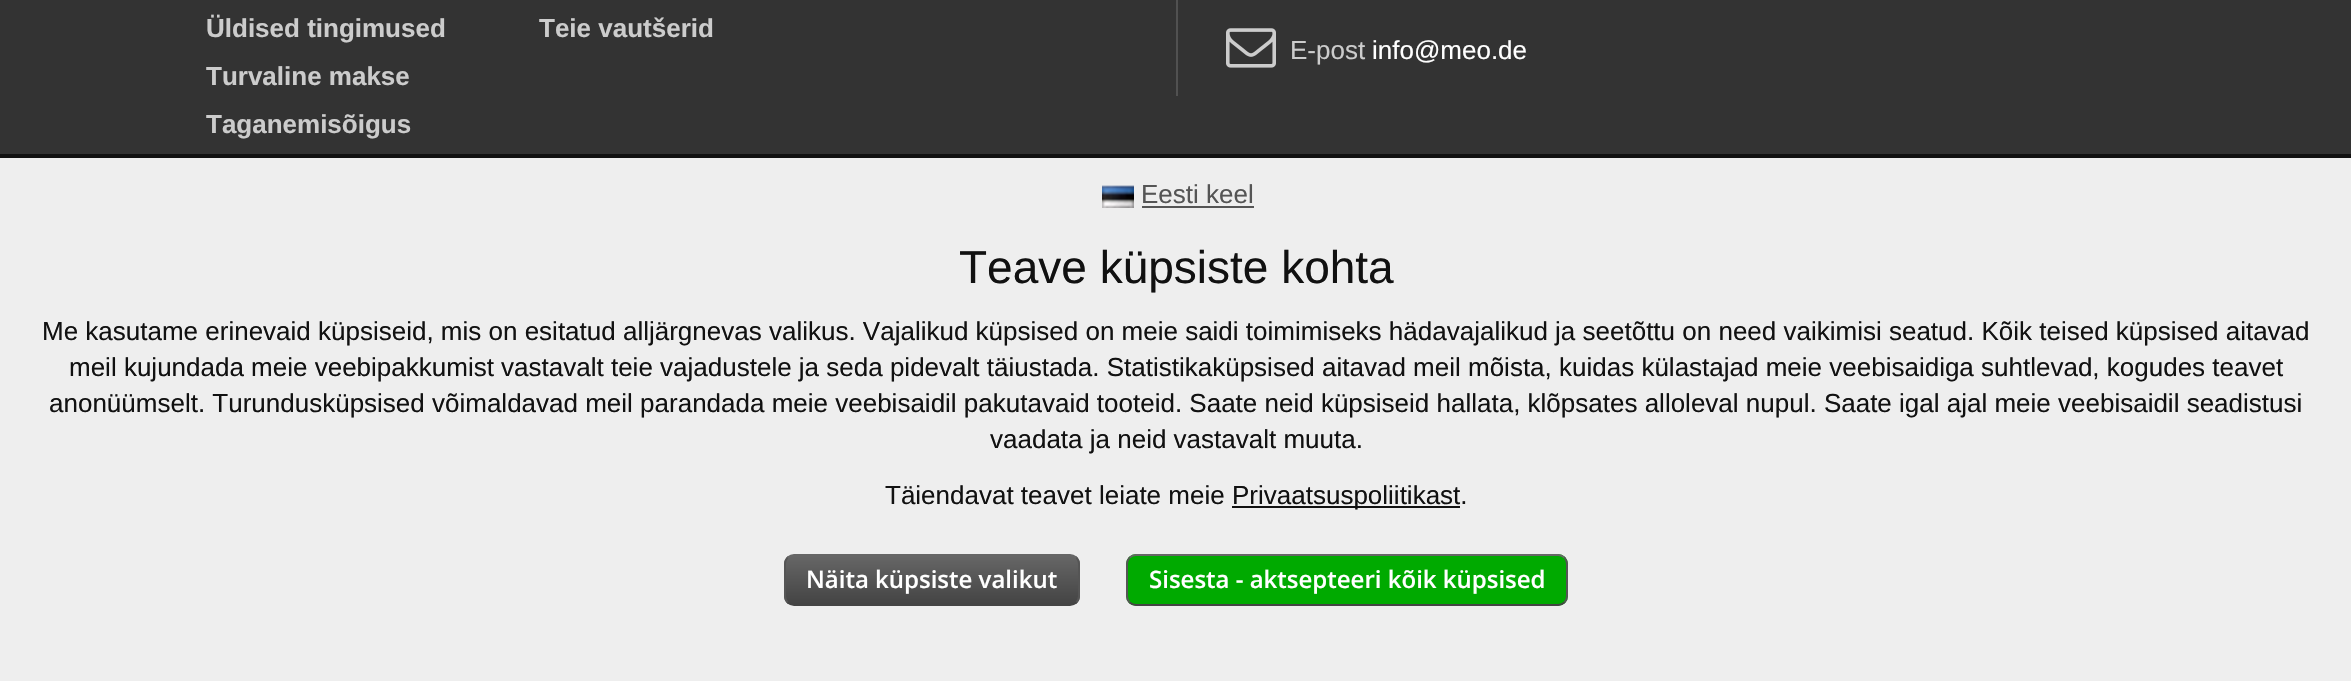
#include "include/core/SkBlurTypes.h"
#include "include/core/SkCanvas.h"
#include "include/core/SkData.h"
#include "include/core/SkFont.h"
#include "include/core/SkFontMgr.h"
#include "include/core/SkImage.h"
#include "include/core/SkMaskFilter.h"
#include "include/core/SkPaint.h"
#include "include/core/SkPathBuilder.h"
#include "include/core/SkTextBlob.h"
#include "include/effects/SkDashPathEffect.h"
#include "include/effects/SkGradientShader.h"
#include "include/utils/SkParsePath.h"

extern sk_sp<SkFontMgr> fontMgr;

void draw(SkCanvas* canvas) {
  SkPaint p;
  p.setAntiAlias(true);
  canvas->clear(SkColorSetRGB(51, 51, 51));
  p.setColor(SkColorSetRGB(81, 81, 81));
  canvas->drawRect(SkRect::MakeLTRB(1176, 0, 1178, 96), p);
  canvas->drawImageRect(SkImages::DeferredFromEncodedData(SkData::MakeFromFileName("images/1.png")), SkRect::MakeLTRB(1226, 28, 1276, 68), SkSamplingOptions());
  p.setColor(SkColorSetRGB(238, 238, 238));
  canvas->drawRect(SkRect::MakeLTRB(0, 158, 2351, 681), p);
  p.setColor(SkColorSetRGB(17, 17, 17));
  canvas->drawRect(SkRect::MakeLTRB(0, 154, 2351, 158), p);
  canvas->drawImageRect(SkImages::DeferredFromEncodedData(SkData::MakeFromFileName("images/2.png")), SkRect::MakeLTRB(1102, 185, 1134, 208), SkSamplingOptions());
  p.setColor(SkColorSetRGB(85, 85, 85));
  canvas->drawRect(SkRect::MakeLTRB(1142, 206, 1254, 208), p);
  p.setColor(SkColorSetRGB(17, 17, 17));
  canvas->drawRect(SkRect::MakeLTRB(1232, 506, 1460, 508), p);
  canvas->save();
  canvas->clipPath(SkPathBuilder().moveTo(794, 554).lineTo(1070, 554).cubicTo(1075.5f, 554, 1080, 558.5f, 1080, 564).lineTo(1080, 596).cubicTo(1080, 601.5f, 1075.5f, 606, 1070, 606).lineTo(794, 606).cubicTo(788.5f, 606, 784, 601.5f, 784, 596).lineTo(784, 564).cubicTo(784, 558.5f, 788.5f, 554, 794, 554).close().detach(), true);
  {
    const SkColor colors[] = {SkColorSetRGB(102, 102, 102), SkColorSetRGB(68, 68, 68)};
    const float stops[] = {0, 1};
    const SkPoint ends[] = {{932, 556}, {932, 604}};
    p.setShader(SkGradientShader::MakeLinear(ends, colors, stops, 2, SkTileMode::kClamp));
    p.setAlpha(255);
  }
  canvas->drawRect(SkRect::MakeLTRB(784, 556, 1080, 604), p);
  canvas->restore();
  p.setStyle(SkPaint::kStroke_Style);
  p.setStrokeWidth(2);
  p.setShader(nullptr);
  p.setColor(SkColorSetRGB(102, 102, 102));
  canvas->drawPath(SkPathBuilder().moveTo(787.5f, 557.5f).cubicTo(789.5f, 556, 791.5f, 555, 794, 555).lineTo(1070, 555).cubicTo(1072.5f, 555, 1074.5f, 556, 1076.5f, 557.5f).detach(), p);
  p.setColor(SkColorSetRGB(85, 85, 85));
  canvas->drawPath(SkPathBuilder().moveTo(1076.5f, 557.5f).cubicTo(1078, 559.5f, 1079, 561.5f, 1079, 564).lineTo(1079, 596).cubicTo(1079, 598.5f, 1078, 600.5f, 1076.5f, 602.5f).detach(), p);
  p.setColor(SkColorSetRGB(68, 68, 68));
  canvas->drawPath(SkPathBuilder().moveTo(1076.5f, 602.5f).cubicTo(1074.5f, 604, 1072.5f, 605, 1070, 605).lineTo(794, 605).cubicTo(791.5f, 605, 789.5f, 604, 787.5f, 602.5f).detach(), p);
  p.setColor(SkColorSetRGB(85, 85, 85));
  canvas->drawPath(SkPathBuilder().moveTo(787.5f, 602.5f).cubicTo(786, 600.5f, 785, 598.5f, 785, 596).lineTo(785, 564).cubicTo(785, 561.5f, 786, 559.5f, 787.5f, 557.5f).detach(), p);
  p.setStyle(SkPaint::kFill_Style);
  p.setColor(SkColorSetRGB(0, 170, 0));
  canvas->drawRoundRect(SkRect::MakeLTRB(1126, 554, 1568, 606), 10, 10, p);
  p.setStyle(SkPaint::kStroke_Style);
  p.setColor(SkColorSetRGB(102, 102, 102));
  canvas->drawPath(SkPathBuilder().moveTo(1129.5f, 557.5f).cubicTo(1131.5f, 556, 1133.5f, 555, 1136, 555).lineTo(1558, 555).cubicTo(1560.5f, 555, 1562.5f, 556, 1564.5f, 557.5f).detach(), p);
  p.setColor(SkColorSetRGB(85, 85, 85));
  canvas->drawPath(SkPathBuilder().moveTo(1564.5f, 557.5f).cubicTo(1566, 559.5f, 1567, 561.5f, 1567, 564).lineTo(1567, 596).cubicTo(1567, 598.5f, 1566, 600.5f, 1564.5f, 602.5f).detach(), p);
  p.setColor(SkColorSetRGB(68, 68, 68));
  canvas->drawPath(SkPathBuilder().moveTo(1564.5f, 602.5f).cubicTo(1562.5f, 604, 1560.5f, 605, 1558, 605).lineTo(1136, 605).cubicTo(1133.5f, 605, 1131.5f, 604, 1129.5f, 602.5f).detach(), p);
  p.setColor(SkColorSetRGB(85, 85, 85));
  canvas->drawPath(SkPathBuilder().moveTo(1129.5f, 602.5f).cubicTo(1128, 600.5f, 1127, 598.5f, 1127, 596).lineTo(1127, 564).cubicTo(1127, 561.5f, 1128, 559.5f, 1129.5f, 557.5f).detach(), p);
  SkFont font1(fontMgr->matchFamilyStyle("Liberation Sans", SkFontStyle::Bold()), 26);
  font1.setSubpixel(true);
  p.setStyle(SkPaint::kFill_Style);
  p.setColor(SkColorSetRGB(204, 204, 204));
  canvas->drawString("Üldised tingimused", 206, 37, font1, p);
  canvas->drawString("Turvaline makse", 206, 85, font1, p);
  canvas->drawString("Taganemisõigus", 206, 133, font1, p);
  canvas->drawString("Teie vautšerid", 539, 37, font1, p);
  SkFont font2(fontMgr->matchFamilyStyle("Liberation Sans", SkFontStyle::Normal()), 26);
  font2.setSubpixel(true);
  canvas->drawString("E-post", 1290, 59, font2, p);
  p.setColor(SK_ColorWHITE);
  canvas->drawString("info@meo.de", 1372, 59, font2, p);
  p.setColor(SkColorSetRGB(85, 85, 85));
  canvas->drawString("Eesti keel", 1141, 203, font2, p);
  SkFont font3(fontMgr->matchFamilyStyle("Liberation Sans", SkFontStyle::Normal()), 46);
  font3.setSubpixel(true);
  p.setColor(SkColorSetRGB(17, 17, 17));
  canvas->drawString("Teave küpsiste kohta", 959, 283, font3, p);
  canvas->drawString("Me kasutame erinevaid küpsiseid, mis on esitatud alljärgnevas valikus. Vajalikud küpsised on meie saidi toimimiseks hädavajalikud ja seetõttu on need vaikimisi seatud. Kõik teised küpsised aitavad", 42, 340, font2, p);
  canvas->drawString("meil kujundada meie veebipakkumist vastavalt teie vajadustele ja seda pidevalt täiustada. Statistikaküpsised aitavad meil mõista, kuidas külastajad meie veebisaidiga suhtlevad, kogudes teavet", 69, 376, font2, p);
  canvas->drawString("anonüümselt. Turundusküpsised võimaldavad meil parandada meie veebisaidil pakutavaid tooteid. Saate neid küpsiseid hallata, klõpsates alloleval nupul. Saate igal ajal meie veebisaidil seadistusi", 49, 412, font2, p);
  canvas->drawString("vaadata ja neid vastavalt muuta.", 990, 448, font2, p);
  canvas->drawString("Täiendavat teavet leiate meie", 885, 504, font2, p);
  canvas->drawString("Privaatsuspoliitikast.", 1232, 504, font2, p);
  SkFont font4(fontMgr->matchFamilyStyle("Open Sans", SkFontStyle(600, SkFontStyle::kNormal_Width, SkFontStyle::kUpright_Slant)), 24);
  font4.setSubpixel(true);
  p.setColor(SK_ColorWHITE);
  canvas->drawString("Näita küpsiste valikut", 806, 588, font4, p);
  canvas->drawString("Sisesta - aktsepteeri kõik küpsised", 1149, 588, font4, p);
}
